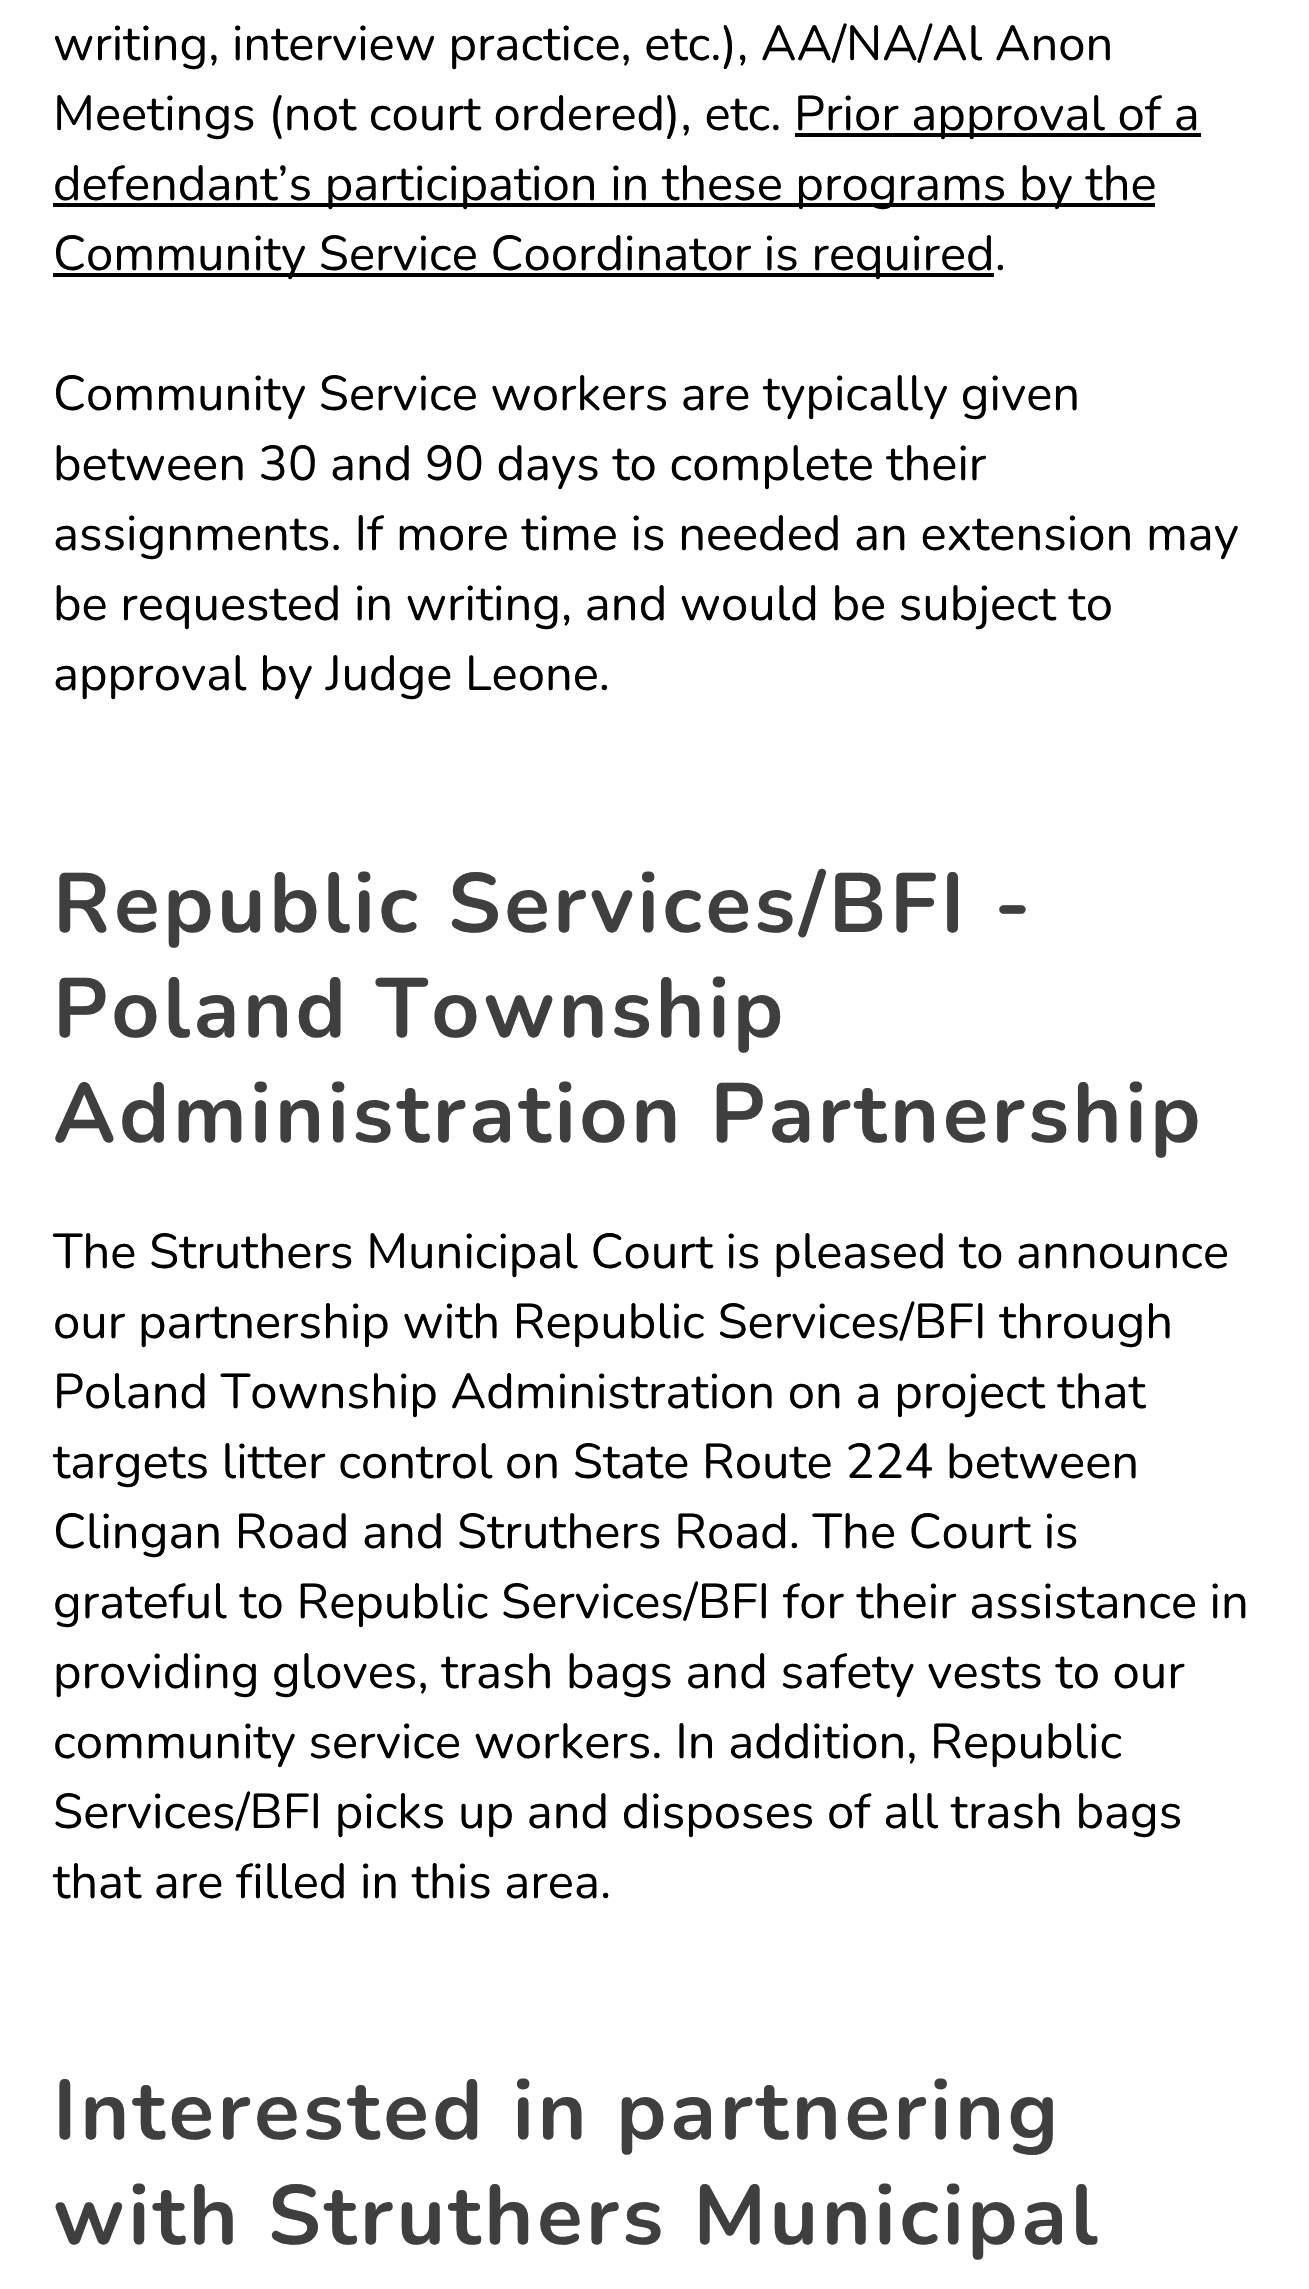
#include "include/core/SkBlurTypes.h"
#include "include/core/SkCanvas.h"
#include "include/core/SkData.h"
#include "include/core/SkFont.h"
#include "include/core/SkFontMgr.h"
#include "include/core/SkImage.h"
#include "include/core/SkMaskFilter.h"
#include "include/core/SkPaint.h"
#include "include/core/SkPathBuilder.h"
#include "include/core/SkTextBlob.h"
#include "include/effects/SkDashPathEffect.h"
#include "include/effects/SkGradientShader.h"
#include "include/utils/SkParsePath.h"

extern sk_sp<SkFontMgr> fontMgr;

void draw(SkCanvas* canvas) {
  SkPaint p;
  p.setAntiAlias(true);
  auto spacedText = [&](const char* s, float x, float y, const SkFont& font, const SkPaint& ink, float letter, float word) {
    std::vector<SkGlyphID> glyphs(font.countText(s, strlen(s), SkTextEncoding::kUTF8));
    std::vector<float> xs(glyphs.size());
    font.textToGlyphs(s, strlen(s), SkTextEncoding::kUTF8, glyphs);
    font.getXPos(glyphs, xs, x);
    float extra = 0;
    for (size_t i = 0; i < glyphs.size(); i++) {
      xs[i] += extra;
      extra += letter + word * (glyphs[i] == font.unicharToGlyph(' '));
    }
    canvas->drawTextBlob(SkTextBlob::MakeFromPosHGlyphs(glyphs, xs, y, font), 0, 0, ink);
  };
  canvas->clear(SK_ColorWHITE);
  p.setColor(SK_ColorBLACK);
  canvas->drawRect(SkRect::MakeLTRB(795, 133, 1201, 137), p);
  canvas->drawRect(SkRect::MakeLTRB(53, 203, 1155, 207), p);
  canvas->drawRect(SkRect::MakeLTRB(53, 273, 994, 277), p);
  SkFont font1(fontMgr->matchFamilyStyle("Nunito", SkFontStyle::Normal()), 49);
  font1.setSubpixel(true);
  canvas->drawString("writing, interview practice, etc.), AA/NA/Al Anon", 53, 60, font1, p);
  canvas->drawString("Meetings (not court ordered), etc.", 53, 130, font1, p);
  canvas->drawString("Prior approval of a", 794, 130, font1, p);
  canvas->drawString("defendant’s participation in these programs by the", 53, 200, font1, p);
  canvas->drawString("Community Service Coordinator is required.", 53, 270, font1, p);
  canvas->drawString("Community Service workers are typically given", 53, 410, font1, p);
  canvas->drawString("between 30 and 90 days to complete their", 53, 480, font1, p);
  canvas->drawString("assignments. If more time is needed an extension may", 53, 550, font1, p);
  canvas->drawString("be requested in writing, and would be subject to", 53, 620, font1, p);
  canvas->drawString("approval by Judge Leone.", 53, 690, font1, p);
  SkFont font2(fontMgr->matchFamilyStyle("Nunito", SkFontStyle::Bold()), 84);
  font2.setSubpixel(true);
  p.setColor(SkColorSetRGB(63, 63, 63));
  spacedText("Republic Services/BFI -", 53, 932, font2, p, 3.5f, 0);
  spacedText("Poland Township", 53, 1037, font2, p, 3.5f, 0);
  spacedText("Administration Partnership", 53, 1142, font2, p, 3.5f, 0);
  p.setColor(SK_ColorBLACK);
  canvas->drawString("The Struthers Municipal Court is pleased to announce", 53, 1268, font1, p);
  canvas->drawString("our partnership with Republic Services/BFI through", 53, 1338, font1, p);
  canvas->drawString("Poland Township Administration on a project that", 53, 1408, font1, p);
  canvas->drawString("targets litter control on State Route 224 between", 53, 1478, font1, p);
  canvas->drawString("Clingan Road and Struthers Road. The Court is", 53, 1548, font1, p);
  canvas->drawString("grateful to Republic Services/BFI for their assistance in", 53, 1618, font1, p);
  canvas->drawString("providing gloves, trash bags and safety vests to our", 53, 1688, font1, p);
  canvas->drawString("community service workers. In addition, Republic", 53, 1758, font1, p);
  canvas->drawString("Services/BFI picks up and disposes of all trash bags", 53, 1828, font1, p);
  canvas->drawString("that are filled in this area.", 53, 1898, font1, p);
  p.setColor(SkColorSetRGB(63, 63, 63));
  spacedText("Interested in partnering", 53, 2139, font2, p, 3.5f, 0);
  spacedText("with Struthers Municipal", 53, 2244, font2, p, 3.5f, 0);
}
